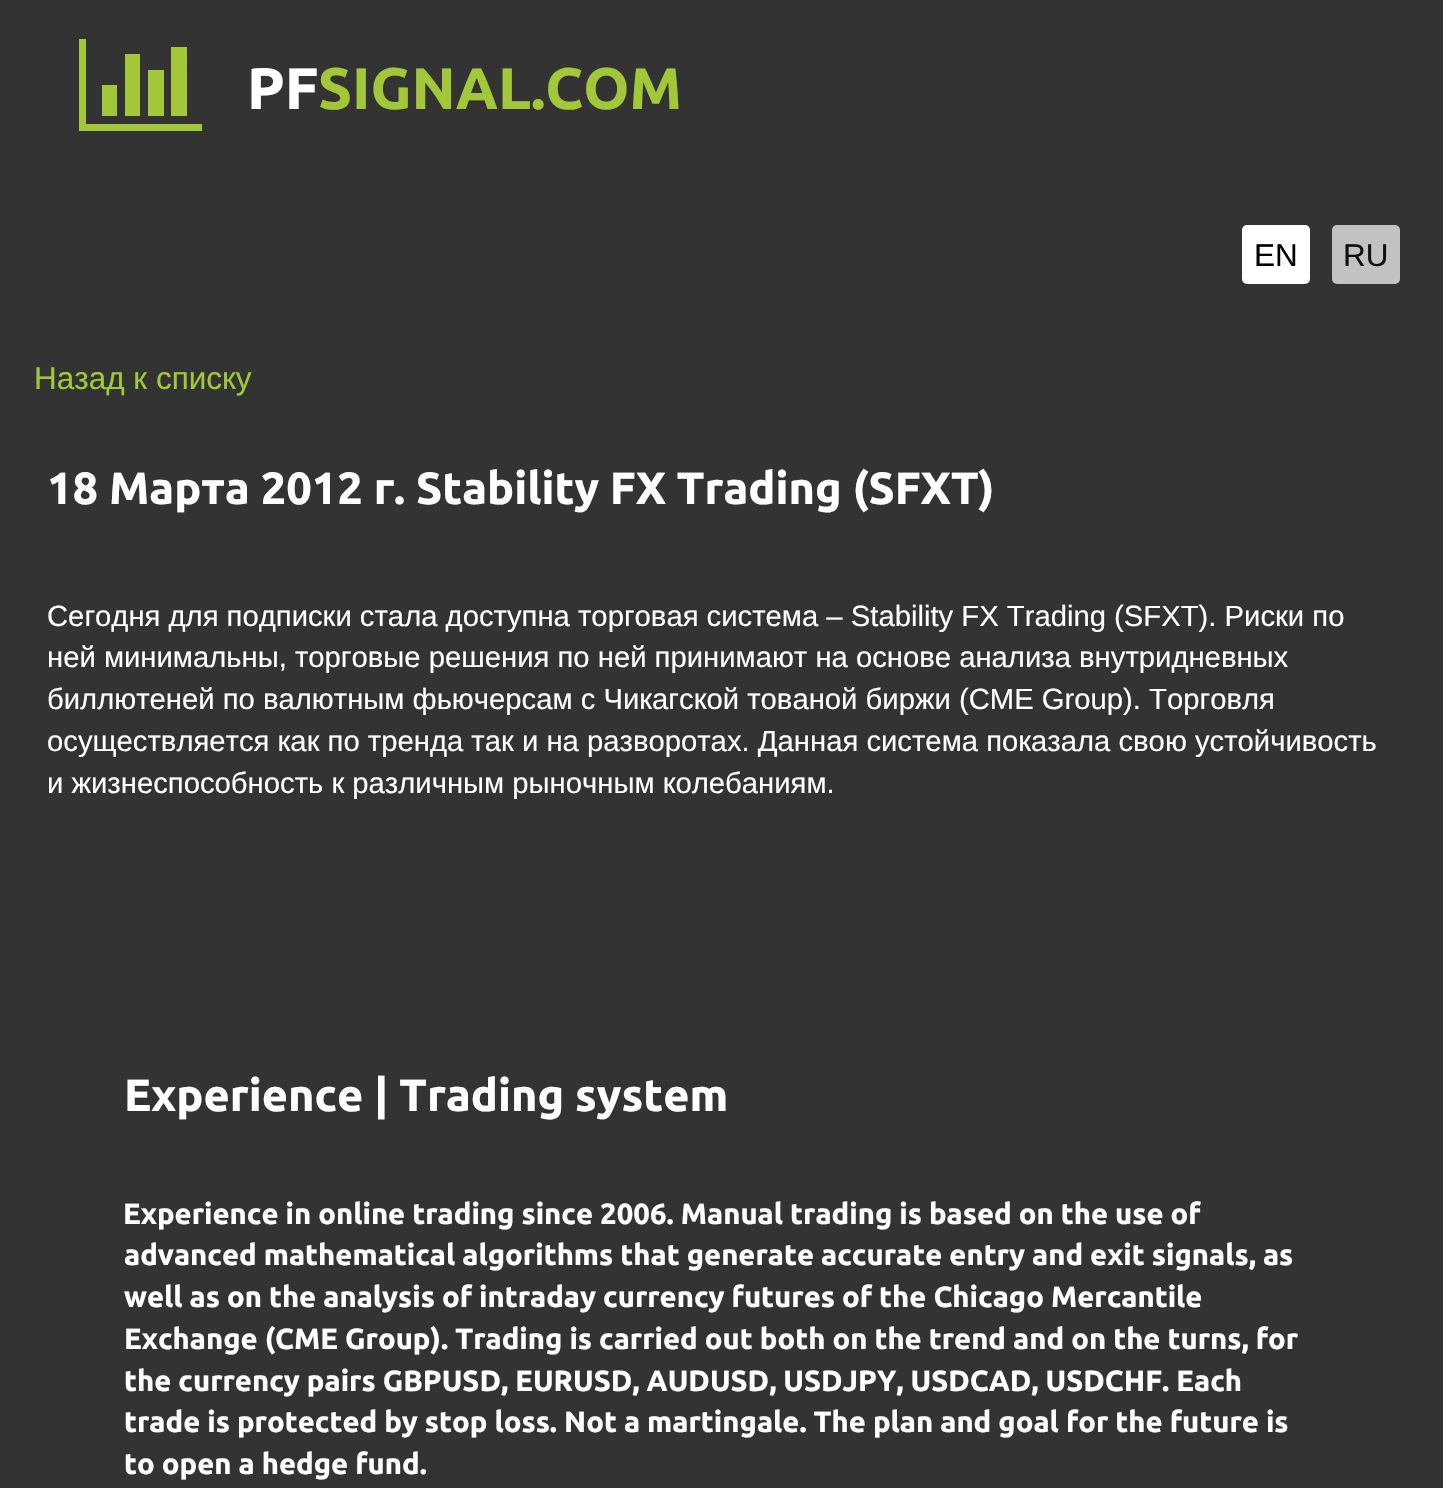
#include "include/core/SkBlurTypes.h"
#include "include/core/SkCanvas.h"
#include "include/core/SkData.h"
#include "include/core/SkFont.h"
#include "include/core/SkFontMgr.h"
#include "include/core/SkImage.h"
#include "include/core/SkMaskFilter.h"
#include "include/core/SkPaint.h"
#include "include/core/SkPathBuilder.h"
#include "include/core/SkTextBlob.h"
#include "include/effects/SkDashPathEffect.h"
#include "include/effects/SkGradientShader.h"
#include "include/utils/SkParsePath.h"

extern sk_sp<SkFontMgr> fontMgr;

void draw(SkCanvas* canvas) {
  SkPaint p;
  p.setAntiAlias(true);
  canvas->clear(SkColorSetRGB(51, 51, 51));
  p.setColor(SkColorSetRGB(162, 200, 58));
  canvas->drawPath(SkPathBuilder().moveTo(117, 85).lineTo(117, 116).lineTo(102, 116).lineTo(102, 85).close().moveTo(140, 54).lineTo(140, 116).lineTo(125, 116).lineTo(125, 54).close().moveTo(202, 124).lineTo(202, 131).lineTo(79, 131).lineTo(79, 39).lineTo(86, 39).lineTo(86, 124).close().moveTo(164, 70).lineTo(164, 116).lineTo(148, 116).lineTo(148, 70).close().moveTo(187, 47).lineTo(187, 116).lineTo(171, 116).lineTo(171, 47).close().detach(), p);
  p.setColor(SK_ColorWHITE);
  canvas->drawRoundRect(SkRect::MakeLTRB(1242, 225, 1310, 284), 5, 5, p);
  p.setColor(SkColorSetRGB(194, 194, 194));
  canvas->drawRoundRect(SkRect::MakeLTRB(1332, 225, 1400, 284), 5, 5, p);
  SkFont font1(fontMgr->matchFamilyStyle("Ubuntu", SkFontStyle::Bold()), 58.5f);
  font1.setSubpixel(true);
  p.setColor(SK_ColorWHITE);
  canvas->drawString("PF", 247, 109, font1, p);
  p.setColor(SkColorSetRGB(162, 200, 58));
  canvas->drawString("SIGNAL.COM", 318, 109, font1, p);
  SkFont font2(fontMgr->matchFamilyStyle("Liberation Sans", SkFontStyle::Normal()), 31.5f);
  font2.setSubpixel(true);
  p.setColor(SK_ColorBLACK);
  canvas->drawString("EN", 1254, 266, font2, p);
  p.setColor(SkColorSetRGB(15, 15, 15));
  canvas->drawString("RU", 1343, 266, font2, p);
  p.setColor(SkColorSetRGB(162, 200, 58));
  canvas->drawString("Назад к списку", 34, 389, font2, p);
  SkFont font3(fontMgr->matchFamilyStyle("Ubuntu", SkFontStyle::Bold()), 45);
  font3.setSubpixel(true);
  p.setColor(SK_ColorWHITE);
  canvas->drawString("18 Марта 2012 г. Stability FX Trading (SFXT)", 47, 504, font3, p);
  SkFont font4(fontMgr->matchFamilyStyle("Liberation Sans", SkFontStyle::Normal()), 29.25f);
  font4.setSubpixel(true);
  canvas->drawString("Сегодня для подписки стала доступна торговая система – Stability FX Trading (SFXT). Риски по", 47, 626, font4, p);
  canvas->drawString("ней минимальны, торговые решения по ней принимают на основе анализа внутридневных", 47, 667, font4, p);
  canvas->drawString("биллютеней по валютным фьючерсам с Чикагской тованой биржи (CME Group). Торговля", 47, 709, font4, p);
  canvas->drawString("осуществляется как по тренда так и на разворотах. Данная система показала свою устойчивость", 47, 751, font4, p);
  canvas->drawString("и жизнеспособность к различным рыночным колебаниям.", 47, 793, font4, p);
  canvas->drawString("Experience | Trading system", 124, 1111, font3, p);
  SkFont font5(fontMgr->matchFamilyStyle("Ubuntu", SkFontStyle::Bold()), 29.25f);
  font5.setSubpixel(true);
  canvas->drawString("Experience in online trading since 2006. Manual trading is based on the use of", 123, 1224, font5, p);
  canvas->drawString("advanced mathematical algorithms that generate accurate entry and exit signals, as", 124, 1265, font5, p);
  canvas->drawString("well as on the analysis of intraday currency futures of the Chicago Mercantile", 124, 1307, font5, p);
  canvas->drawString("Exchange (CME Group). Trading is carried out both on the trend and on the turns, for", 124, 1349, font5, p);
  canvas->drawString("the currency pairs GBPUSD, EURUSD, AUDUSD, USDJPY, USDCAD, USDCHF. Each", 124, 1391, font5, p);
  canvas->drawString("trade is protected by stop loss. Not a martingale. The plan and goal for the future is", 124, 1432, font5, p);
  canvas->drawString("to open a hedge fund.", 124, 1474, font5, p);
}
